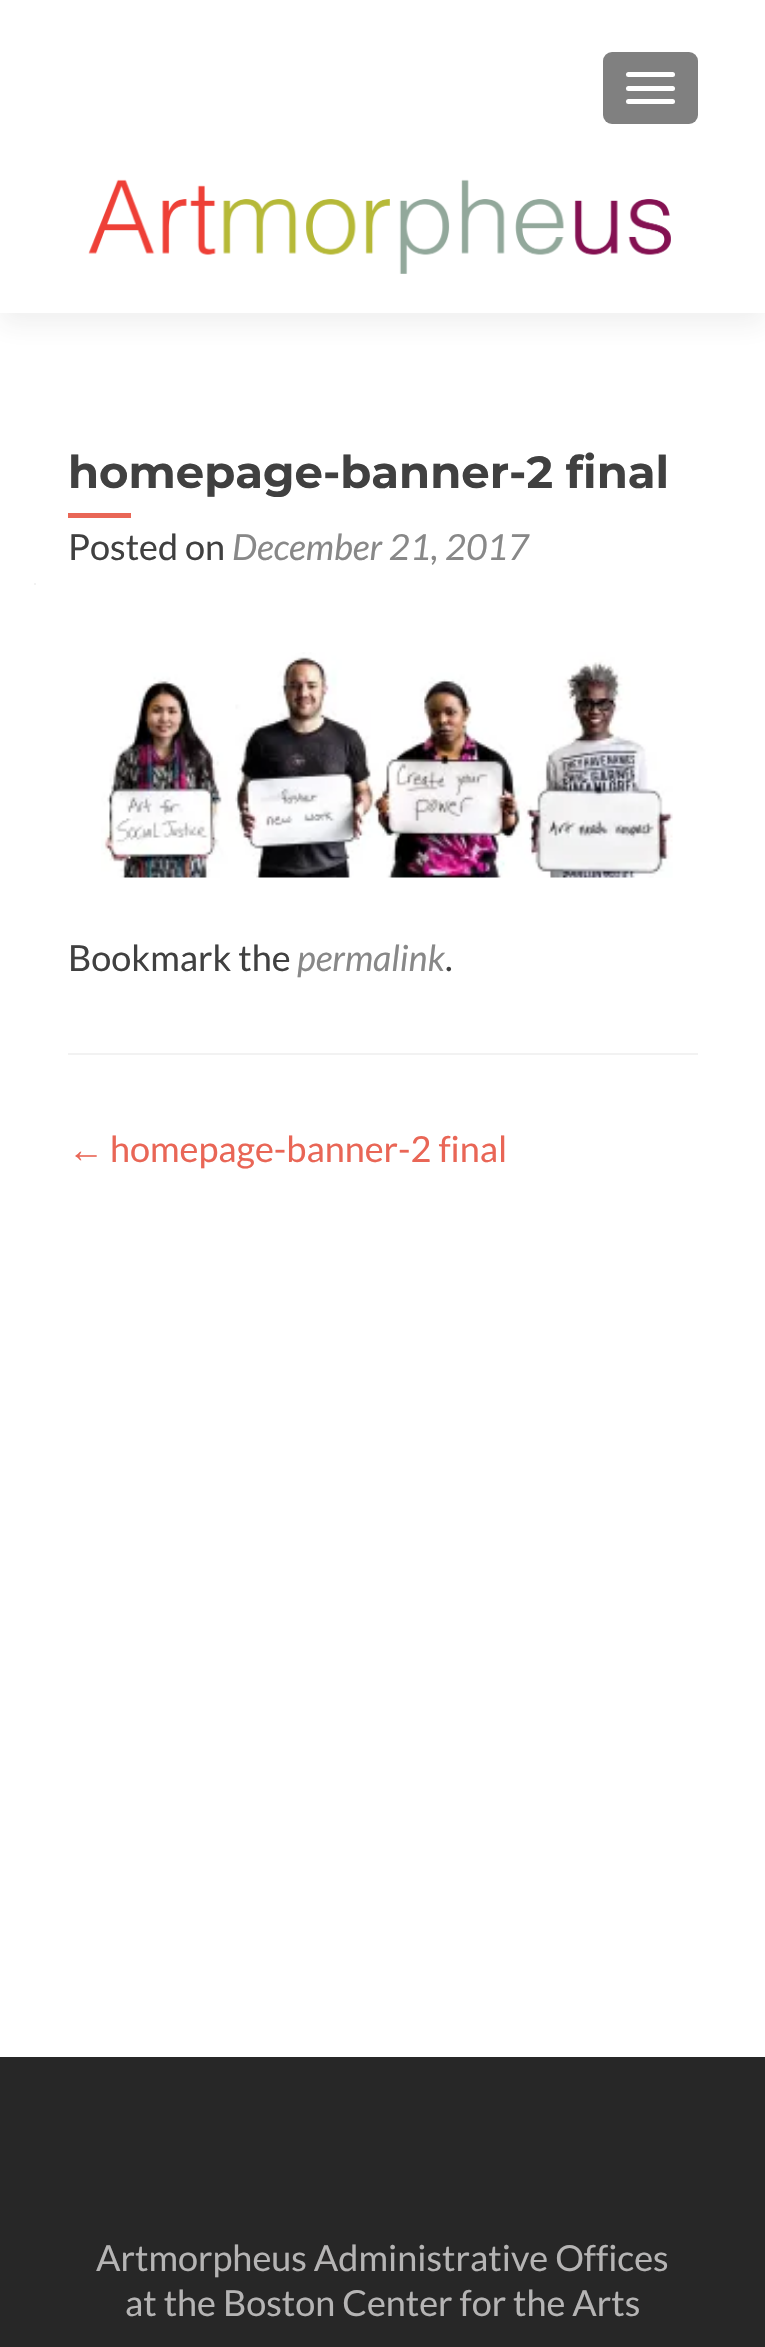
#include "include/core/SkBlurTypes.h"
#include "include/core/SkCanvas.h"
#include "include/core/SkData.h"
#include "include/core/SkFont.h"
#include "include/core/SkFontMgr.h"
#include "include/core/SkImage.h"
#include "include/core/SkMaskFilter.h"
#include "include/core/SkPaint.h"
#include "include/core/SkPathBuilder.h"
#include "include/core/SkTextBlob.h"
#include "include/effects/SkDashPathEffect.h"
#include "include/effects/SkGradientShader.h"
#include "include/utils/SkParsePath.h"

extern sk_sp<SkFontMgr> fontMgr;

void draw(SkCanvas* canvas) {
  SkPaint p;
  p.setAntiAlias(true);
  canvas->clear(SK_ColorWHITE);
  p.setColor(SkColorSetARGB(20, 50, 50, 50));
  p.setMaskFilter(SkMaskFilter::MakeBlur(kNormal_SkBlurStyle, 12.5f));
  canvas->drawRect(SkRect::MakeLTRB(0, 11, 765, 324), p);
  p.setMaskFilter(nullptr);
  p.setColor(SK_ColorWHITE);
  canvas->drawRect(SkRect::MakeLTRB(0, 0, 765, 313), p);
  p.setColor(SkColorSetRGB(128, 128, 128));
  canvas->drawRoundRect(SkRect::MakeLTRB(603, 52, 698, 124), 9, 9, p);
  p.setColor(SK_ColorWHITE);
  canvas->drawRoundRect(SkRect::MakeLTRB(626, 72, 675, 77), 2.5f, 2.5f, p);
  canvas->drawRoundRect(SkRect::MakeLTRB(626, 86, 675, 91), 2.5f, 2.5f, p);
  canvas->drawRoundRect(SkRect::MakeLTRB(626, 99, 675, 104), 2.5f, 2.5f, p);
  canvas->drawImageRect(SkImages::DeferredFromEncodedData(SkData::MakeFromFileName("images/1.png")), SkRect::MakeLTRB(88, 179, 671, 274), SkSamplingOptions());
  p.setColor(SkColorSetRGB(242, 242, 242));
  canvas->drawRect(SkRect::MakeLTRB(34, 583, 36, 585), p);
  canvas->drawRect(SkRect::MakeLTRB(68, 1053, 698, 1055), p);
  p.setColor(SkColorSetRGB(233, 102, 86));
  canvas->drawRect(SkRect::MakeLTRB(68, 513, 131, 518), p);
  canvas->drawImageRect(SkImages::DeferredFromEncodedData(SkData::MakeFromFileName("images/2.png")), SkRect::MakeLTRB(101, 652, 673, 878), SkSamplingOptions());
  p.setColor(SkColorSetRGB(39, 39, 39));
  canvas->drawRect(SkRect::MakeLTRB(0, 2057, 765, 2347), p);
  SkFont font1(fontMgr->matchFamilyStyle("Montserrat", SkFontStyle::Bold()), 45);
  font1.setSubpixel(true);
  p.setColor(SkColorSetRGB(64, 64, 64));
  canvas->drawString("homepage-banner-2 final", 68, 488, font1, p);
  SkFont font2(fontMgr->matchFamilyStyle("Lato", SkFontStyle::Normal()), 36);
  font2.setSubpixel(true);
  canvas->drawString("Posted on", 68, 560, font2, p);
  SkFont font3(fontMgr->matchFamilyStyle("Lato", SkFontStyle::Italic()), 36);
  font3.setSubpixel(true);
  p.setColor(SkColorSetRGB(136, 136, 136));
  canvas->drawString("December 21, 2017", 232, 560, font3, p);
  p.setColor(SkColorSetRGB(64, 64, 64));
  canvas->drawString("Bookmark the", 68, 971, font2, p);
  p.setColor(SkColorSetRGB(136, 136, 136));
  canvas->drawString("permalink", 297, 971, font3, p);
  p.setColor(SkColorSetRGB(64, 64, 64));
  canvas->drawString(".", 445, 971, font2, p);
  SkFont font4(fontMgr->matchFamilyStyle("Liberation Sans", SkFontStyle::Normal()), 36);
  font4.setSubpixel(true);
  p.setColor(SkColorSetRGB(233, 102, 86));
  canvas->drawString("←", 68, 1162, font4, p);
  canvas->drawString("homepage-banner-2 final", 110, 1162, font2, p);
  p.setColor(SkColorSetRGB(181, 180, 180));
  canvas->drawString("Artmorpheus Administrative Offices", 96, 2271, font2, p);
  canvas->drawString("at the Boston Center for the Arts", 125, 2316, font2, p);
}
